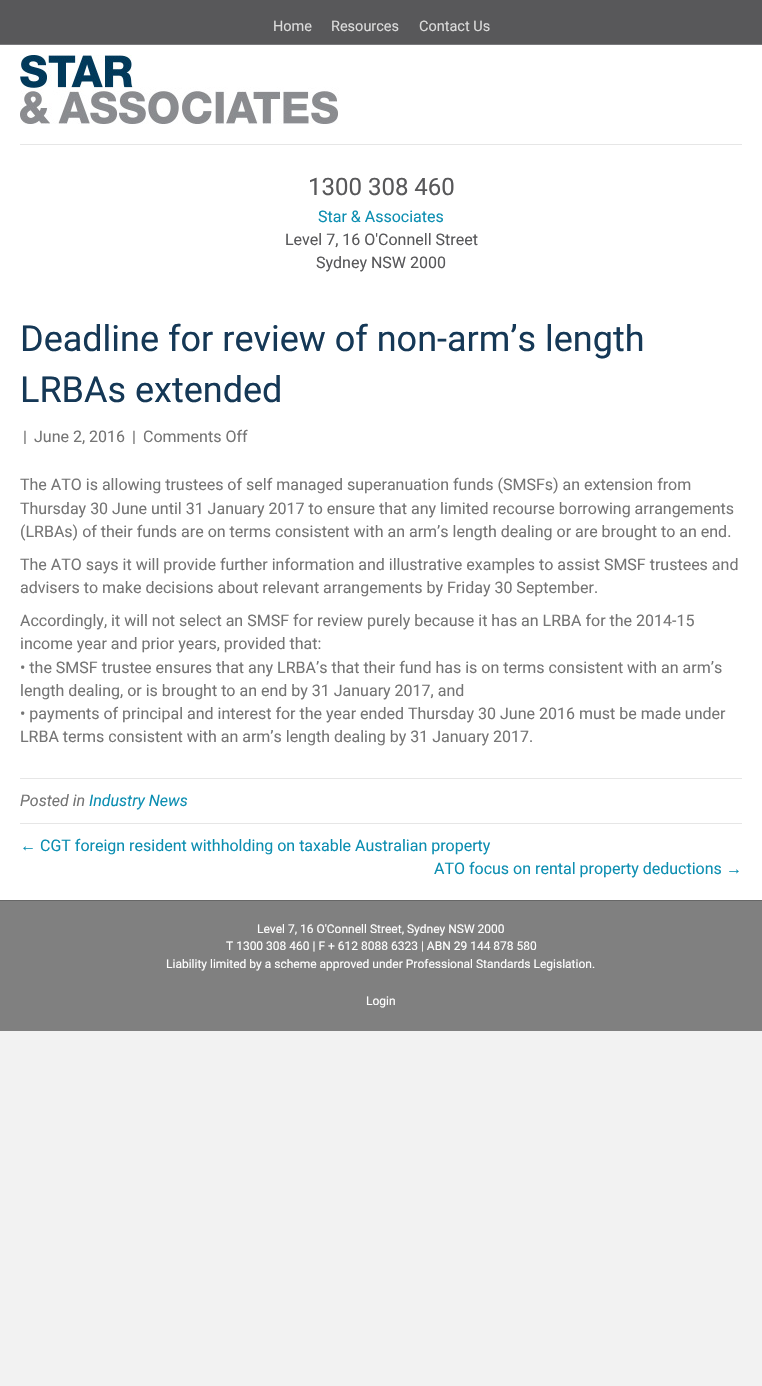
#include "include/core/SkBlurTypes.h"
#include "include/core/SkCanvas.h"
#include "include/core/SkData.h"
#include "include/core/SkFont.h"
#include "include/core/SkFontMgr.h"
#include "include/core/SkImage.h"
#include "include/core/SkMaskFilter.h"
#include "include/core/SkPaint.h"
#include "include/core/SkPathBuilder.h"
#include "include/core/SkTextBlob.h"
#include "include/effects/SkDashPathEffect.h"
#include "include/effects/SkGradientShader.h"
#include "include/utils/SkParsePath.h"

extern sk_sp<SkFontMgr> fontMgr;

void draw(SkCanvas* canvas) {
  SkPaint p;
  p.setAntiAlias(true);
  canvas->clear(SkColorSetRGB(242, 242, 242));
  p.setColor(SkColorSetRGB(88, 88, 90));
  canvas->drawRect(SkRect::MakeLTRB(0, 0, 762, 44), p);
  p.setColor(SkColorSetRGB(121, 121, 124));
  canvas->drawRect(SkRect::MakeLTRB(0, 44, 762, 45), p);
  p.setColor(SK_ColorWHITE);
  canvas->drawRect(SkRect::MakeLTRB(0, 45, 762, 900), p);
  canvas->drawImageRect(SkImages::DeferredFromEncodedData(SkData::MakeFromFileName("images/1.png")), SkRect::MakeLTRB(20, 55, 339, 124), SkSamplingOptions());
  p.setColor(SkColorSetRGB(230, 230, 230));
  canvas->drawRect(SkRect::MakeLTRB(20, 144, 742, 145), p);
  canvas->drawRect(SkRect::MakeLTRB(20, 778, 742, 779), p);
  canvas->drawRect(SkRect::MakeLTRB(20, 823, 742, 824), p);
  p.setColor(SkColorSetRGB(128, 128, 128));
  canvas->drawRect(SkRect::MakeLTRB(0, 901, 762, 1031), p);
  p.setColor(SkColorSetRGB(103, 103, 103));
  canvas->drawRect(SkRect::MakeLTRB(0, 900, 762, 901), p);
  SkFont font1(fontMgr->matchFamilyStyle("Roboto", SkFontStyle::Normal()), 14.5f);
  font1.setSubpixel(true);
  p.setColor(SkColorSetRGB(219, 219, 219));
  canvas->drawString("Home", 273, 31, font1, p);
  canvas->drawString("Resources", 331, 31, font1, p);
  canvas->drawString("Contact Us", 419, 31, font1, p);
  SkFont font2(fontMgr->matchFamilyStyle("Roboto", SkFontStyle::Normal()), 24);
  font2.setSubpixel(true);
  p.setColor(SkColorSetRGB(88, 88, 90));
  canvas->drawString("1300 308 460", 308, 195, font2, p);
  SkFont font3(fontMgr->matchFamilyStyle("Roboto", SkFontStyle::Normal()), 16);
  font3.setSubpixel(true);
  p.setColor(SkColorSetRGB(12, 142, 177));
  canvas->drawString("Star & Associates", 318, 222, font3, p);
  p.setColor(SkColorSetRGB(88, 88, 90));
  canvas->drawString("Level 7, 16 O'Connell Street", 285, 245, font3, p);
  canvas->drawString("Sydney NSW 2000", 316, 268, font3, p);
  SkFont font4(fontMgr->matchFamilyStyle("Roboto", SkFontStyle::Normal()), 36);
  font4.setSubpixel(true);
  p.setColor(SkColorSetRGB(21, 56, 86));
  canvas->drawString("Deadline for review of non-arm’s length", 20, 351, font4, p);
  canvas->drawString("LRBAs extended", 20, 402, font4, p);
  p.setColor(SkColorSetRGB(117, 117, 117));
  canvas->drawString("|", 23, 442, font3, p);
  canvas->drawString("June 2, 2016", 34, 442, font3, p);
  canvas->drawString("|", 132, 442, font3, p);
  canvas->drawString("Comments Off", 143, 442, font3, p);
  canvas->drawString("The ATO is allowing trustees of self managed superanuation funds (SMSFs) an extension from", 20, 490, font3, p);
  canvas->drawString("Thursday 30 June until 31 January 2017 to ensure that any limited recourse borrowing arrangements", 20, 514, font3, p);
  canvas->drawString("(LRBAs) of their funds are on terms consistent with an arm’s length dealing or are brought to an end.", 20, 537, font3, p);
  canvas->drawString("The ATO says it will provide further information and illustrative examples to assist SMSF trustees and", 20, 570, font3, p);
  canvas->drawString("advisers to make decisions about relevant arrangements by Friday 30 September.", 20, 593, font3, p);
  canvas->drawString("Accordingly, it will not select an SMSF for review purely because it has an LRBA for the 2014-15", 20, 626, font3, p);
  canvas->drawString("income year and prior years, provided that:", 20, 649, font3, p);
  canvas->drawString("• the SMSF trustee ensures that any LRBA’s that their fund has is on terms consistent with an arm’s", 20, 673, font3, p);
  canvas->drawString("length dealing, or is brought to an end by 31 January 2017, and", 20, 696, font3, p);
  canvas->drawString("• payments of principal and interest for the year ended Thursday 30 June 2016 must be made under", 20, 719, font3, p);
  canvas->drawString("LRBA terms consistent with an arm’s length dealing by 31 January 2017.", 20, 742, font3, p);
  SkFont font5(fontMgr->matchFamilyStyle("Roboto", SkFontStyle::Italic()), 16);
  font5.setSubpixel(true);
  canvas->drawString("Posted in", 20, 806, font5, p);
  p.setColor(SkColorSetRGB(12, 142, 177));
  canvas->drawString("Industry News", 89, 806, font5, p);
  SkFont font6(fontMgr->matchFamilyStyle("Liberation Sans", SkFontStyle::Normal()), 16);
  font6.setSubpixel(true);
  canvas->drawString("←", 20, 851, font6, p);
  canvas->drawString("CGT foreign resident withholding on taxable Australian property", 40, 851, font3, p);
  canvas->drawString("ATO focus on rental property deductions", 434, 874, font3, p);
  canvas->drawString("→", 726, 874, font6, p);
  SkFont font7(fontMgr->matchFamilyStyle("Roboto", SkFontStyle::Normal()), 12);
  font7.setSubpixel(true);
  p.setColor(SK_ColorWHITE);
  canvas->drawString("Level 7, 16 O'Connell Street, Sydney NSW 2000", 257, 933, font7, p);
  canvas->drawString("T 1300 308 460 | F + 612 8088 6323 | ABN 29 144 878 580", 226, 950, font7, p);
  canvas->drawString("Liability limited by a scheme approved under Professional Standards Legislation.", 166, 968, font7, p);
  canvas->drawString("Login", 366, 1005, font7, p);
}
